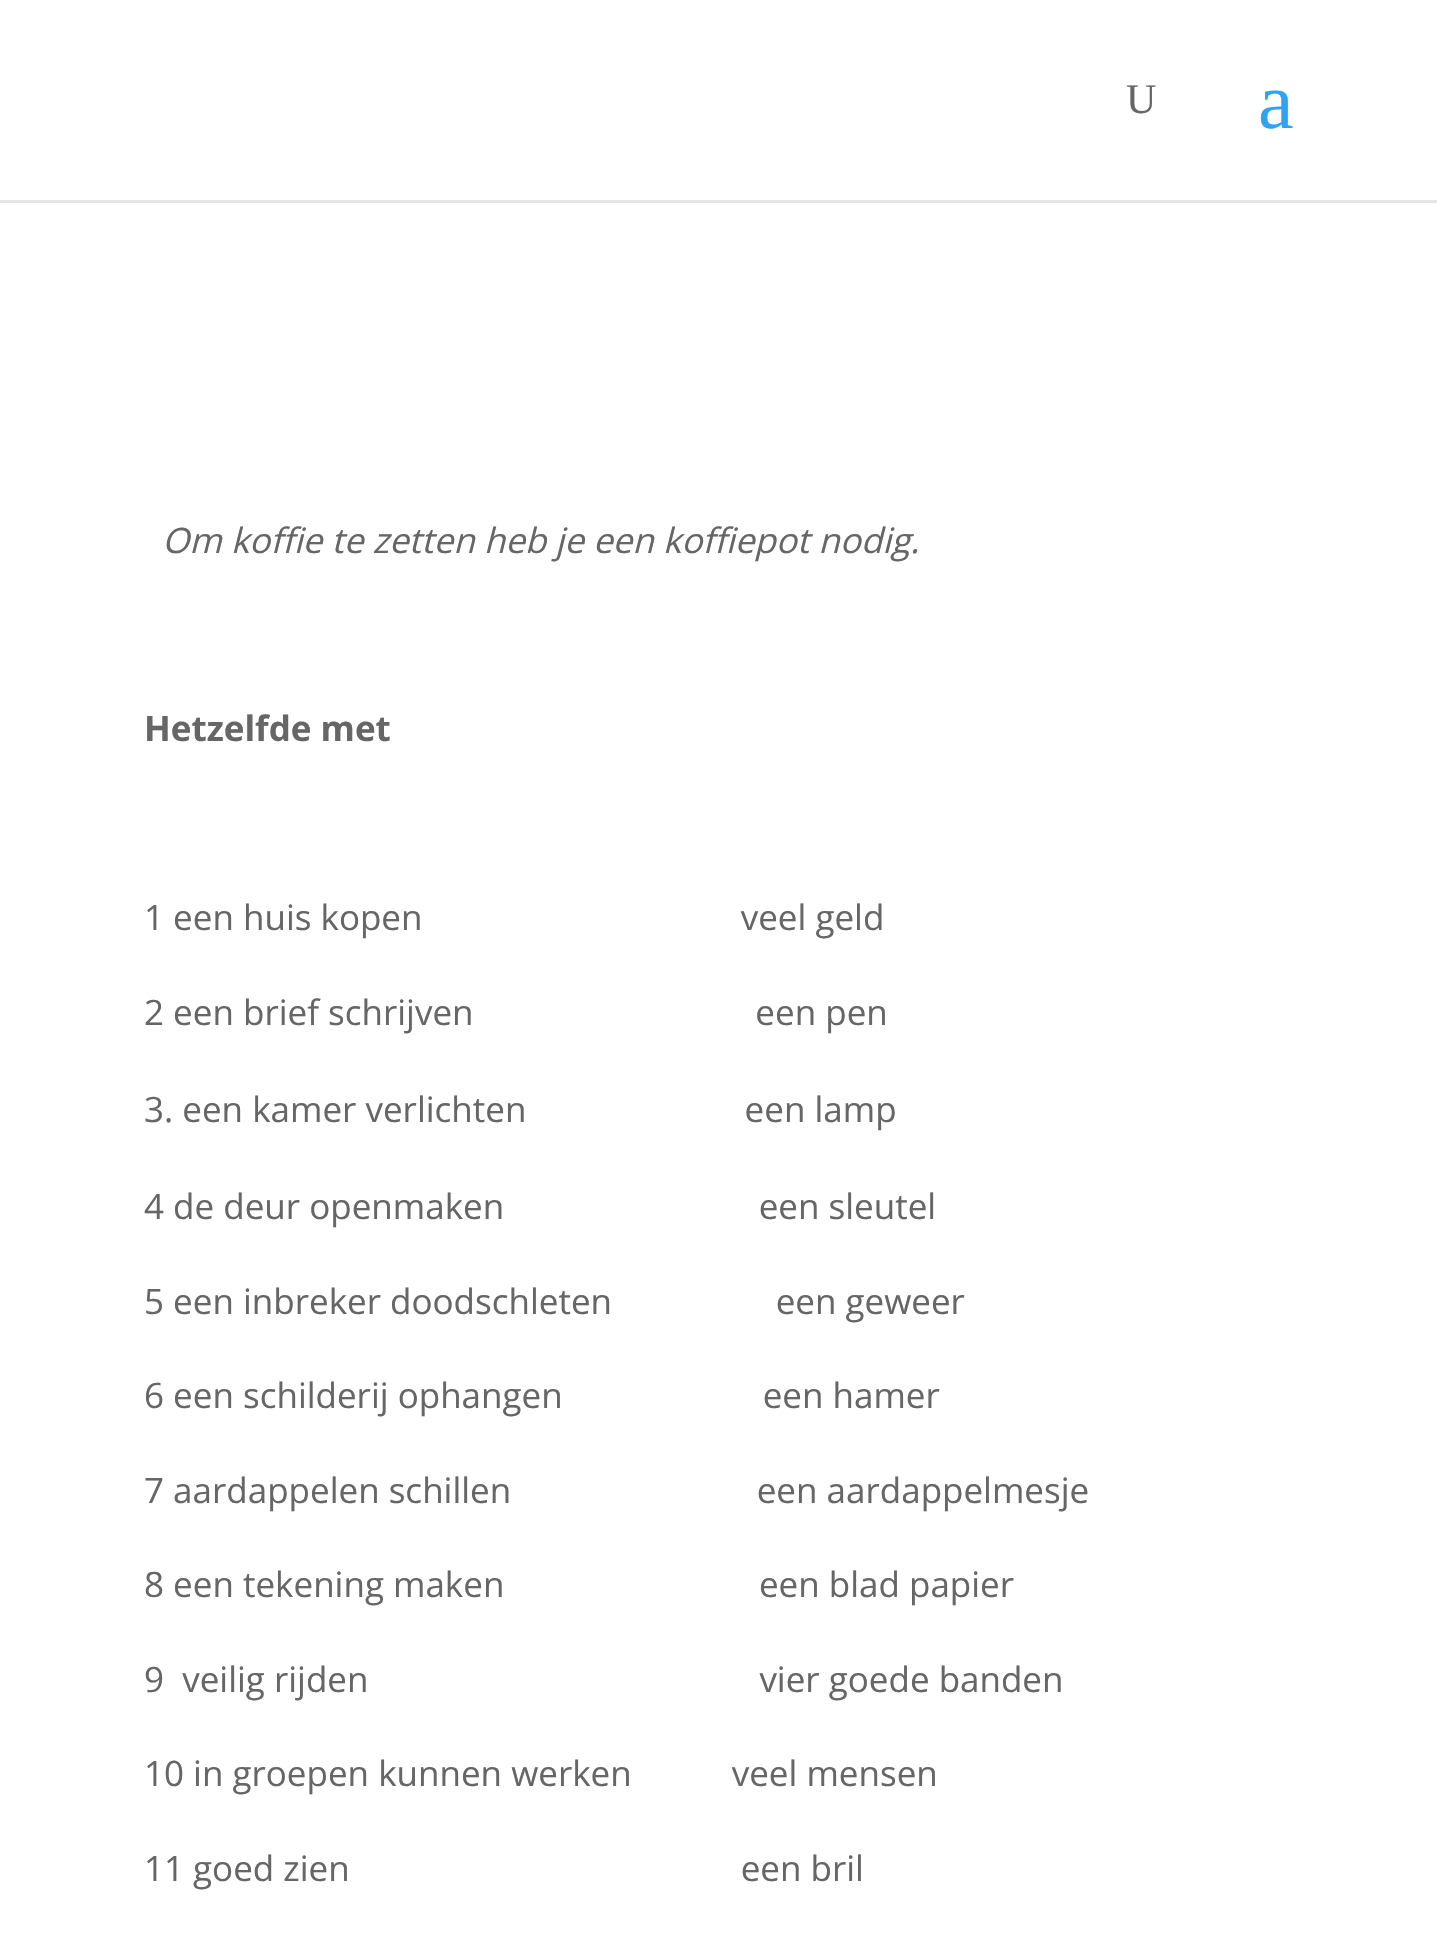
#include "include/core/SkBlurTypes.h"
#include "include/core/SkCanvas.h"
#include "include/core/SkData.h"
#include "include/core/SkFont.h"
#include "include/core/SkFontMgr.h"
#include "include/core/SkImage.h"
#include "include/core/SkMaskFilter.h"
#include "include/core/SkPaint.h"
#include "include/core/SkPathBuilder.h"
#include "include/core/SkTextBlob.h"
#include "include/effects/SkDashPathEffect.h"
#include "include/effects/SkGradientShader.h"
#include "include/utils/SkParsePath.h"

extern sk_sp<SkFontMgr> fontMgr;

void draw(SkCanvas* canvas) {
  SkPaint p;
  p.setAntiAlias(true);
  canvas->clear(SK_ColorWHITE);
  p.setColor(SkColorSetRGB(230, 230, 230));
  canvas->drawPath(SkPathBuilder().moveTo(0, 200).lineTo(0, 203).lineTo(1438, 203).lineTo(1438, 3).lineTo(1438, 200).close().detach(), p);
  SkFont font1(fontMgr->matchFamilyStyle("Liberation Serif", SkFontStyle::Normal()), 42);
  font1.setSubpixel(true);
  p.setColor(SkColorSetRGB(102, 102, 102));
  canvas->drawString("U", 1126, 113, font1, p);
  SkFont font2(fontMgr->matchFamilyStyle("Liberation Serif", SkFontStyle::Normal()), 80);
  font2.setSubpixel(true);
  p.setColor(SkColorSetRGB(46, 163, 242));
  canvas->drawString("a", 1258, 128, font2, p);
  SkFont font3(fontMgr->matchFamilyStyle("Open Sans", SkFontStyle::Italic()), 35);
  font3.setSubpixel(true);
  p.setColor(SkColorSetRGB(102, 102, 102));
  canvas->drawString("Om koffie te zetten heb je een koffiepot nodig.", 162, 553, font3, p);
  SkFont font4(fontMgr->matchFamilyStyle("Open Sans", SkFontStyle::Bold()), 35);
  font4.setSubpixel(true);
  canvas->drawString("Hetzelfde met", 144, 741, font4, p);
  SkFont font5(fontMgr->matchFamilyStyle("Open Sans", SkFontStyle::Normal()), 35);
  font5.setSubpixel(true);
  canvas->drawString("1 een huis kopen                                   veel geld", 144, 930, font5, p);
  canvas->drawString("2 een brief schrijven                               een pen", 144, 1025, font5, p);
  canvas->drawString("3. een kamer verlichten                        een lamp", 144, 1122, font5, p);
  canvas->drawString("4 de deur openmaken                            een sleutel", 144, 1219, font5, p);
  canvas->drawString("5 een inbreker doodschleten                  een geweer", 144, 1314, font5, p);
  canvas->drawString("6 een schilderij ophangen                      een hamer", 144, 1408, font5, p);
  canvas->drawString("7 aardappelen schillen                           een aardappelmesje", 144, 1503, font5, p);
  canvas->drawString("8 een tekening maken                            een blad papier", 144, 1597, font5, p);
  canvas->drawString("9  veilig rijden                                           vier goede banden", 144, 1692, font5, p);
  canvas->drawString("10 in groepen kunnen werken           veel mensen", 144, 1786, font5, p);
  canvas->drawString("11 goed zien                                           een bril", 144, 1881, font5, p);
}
